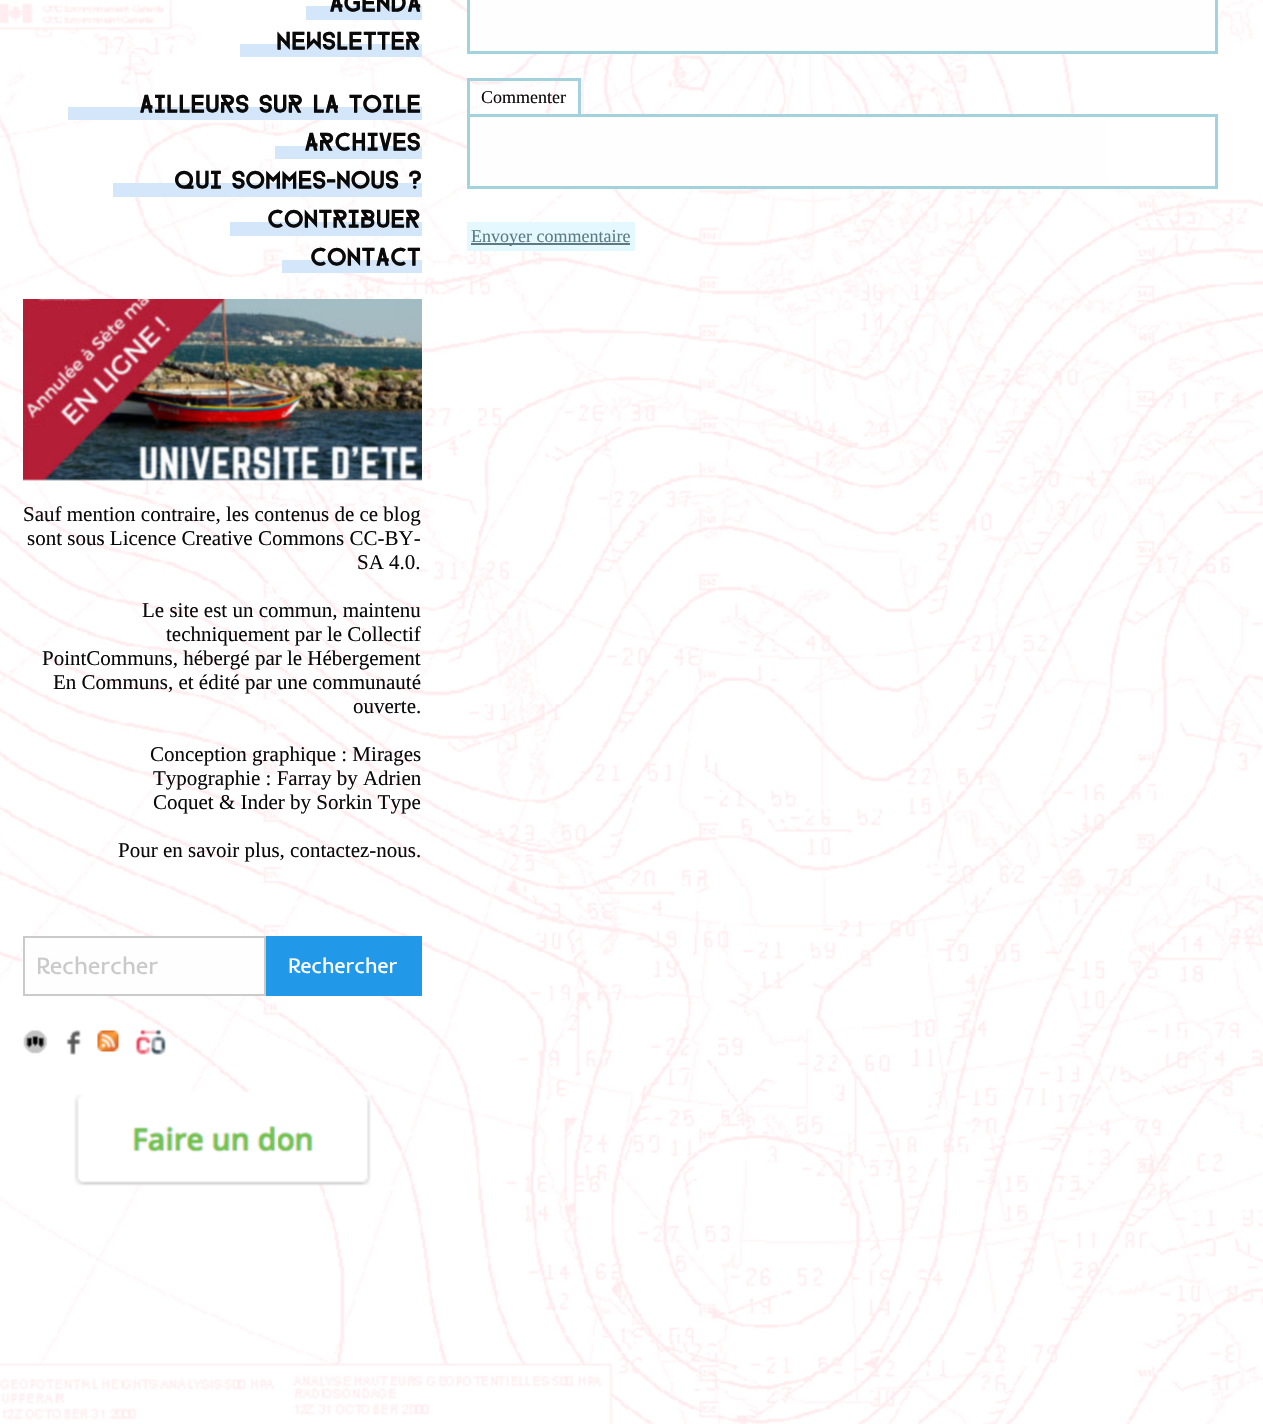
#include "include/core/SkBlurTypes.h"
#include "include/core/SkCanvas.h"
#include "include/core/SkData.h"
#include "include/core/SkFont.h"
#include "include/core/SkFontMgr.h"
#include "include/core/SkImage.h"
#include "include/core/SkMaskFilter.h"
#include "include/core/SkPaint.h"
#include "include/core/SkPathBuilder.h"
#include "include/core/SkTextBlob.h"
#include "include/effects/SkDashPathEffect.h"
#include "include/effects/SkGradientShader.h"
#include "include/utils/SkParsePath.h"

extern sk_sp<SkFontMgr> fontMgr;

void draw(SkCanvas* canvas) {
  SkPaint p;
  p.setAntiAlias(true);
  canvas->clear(SK_ColorWHITE);
  canvas->drawImageRect(SkImages::DeferredFromEncodedData(SkData::MakeFromFileName("images/1.png")), SkRect::MakeLTRB(0, 0, 1263, 1424), SkSamplingOptions());
  p.setColor(SkColorSetRGB(211, 230, 250));
  canvas->drawRect(SkRect::MakeLTRB(306, 6, 422, 20), p);
  canvas->drawRect(SkRect::MakeLTRB(240, 44, 422, 57), p);
  canvas->drawRect(SkRect::MakeLTRB(68, 107, 422, 120), p);
  canvas->drawRect(SkRect::MakeLTRB(275, 146, 422, 159), p);
  canvas->drawRect(SkRect::MakeLTRB(113, 183, 422, 197), p);
  canvas->drawRect(SkRect::MakeLTRB(230, 222, 422, 236), p);
  canvas->drawRect(SkRect::MakeLTRB(282, 260, 422, 273), p);
  canvas->drawImageRect(SkImages::DeferredFromEncodedData(SkData::MakeFromFileName("images/2.png")), SkRect::MakeLTRB(23, 299, 422, 481), SkSamplingOptions());
  p.setColor(SkColorSetRGB(254, 254, 254));
  canvas->drawRect(SkRect::MakeLTRB(24, 937, 265, 995), p);
  p.setStyle(SkPaint::kStroke_Style);
  p.setStrokeWidth(2);
  p.setColor(SkColorSetRGB(202, 202, 202));
  canvas->drawRect(SkRect::MakeLTRB(24, 937, 265, 995), p);
  p.setStyle(SkPaint::kFill_Style);
  p.setColor(SkColorSetRGB(33, 153, 232));
  canvas->drawRect(SkRect::MakeLTRB(266, 936, 422, 996), p);
  canvas->drawImageRect(SkImages::DeferredFromEncodedData(SkData::MakeFromFileName("images/3.png")), SkRect::MakeLTRB(23, 1030, 48, 1054), SkSamplingOptions());
  canvas->drawImageRect(SkImages::DeferredFromEncodedData(SkData::MakeFromFileName("images/4.png")), SkRect::MakeLTRB(66, 1029, 82, 1055), SkSamplingOptions());
  canvas->drawImageRect(SkImages::DeferredFromEncodedData(SkData::MakeFromFileName("images/5.png")), SkRect::MakeLTRB(97, 1030, 119, 1052), SkSamplingOptions());
  canvas->drawImageRect(SkImages::DeferredFromEncodedData(SkData::MakeFromFileName("images/6.png")), SkRect::MakeLTRB(135, 1029, 166, 1055), SkSamplingOptions());
  canvas->drawImageRect(SkImages::DeferredFromEncodedData(SkData::MakeFromFileName("images/7.png")), SkRect::MakeLTRB(74, 1091, 371, 1186), SkSamplingOptions());
  p.setColor(SkColorSetRGB(254, 254, 254));
  canvas->drawRect(SkRect::MakeLTRB(468.5f, -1.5f, 1216.5f, 52.5f), p);
  p.setStyle(SkPaint::kStroke_Style);
  p.setStrokeWidth(3);
  p.setColor(SkColorSetRGB(163, 210, 223));
  canvas->drawRect(SkRect::MakeLTRB(468.5f, -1.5f, 1216.5f, 52.5f), p);
  p.setStyle(SkPaint::kFill_Style);
  canvas->drawRect(SkRect::MakeLTRB(467, 78, 581, 81), p);
  canvas->drawRect(SkRect::MakeLTRB(578, 78, 581, 114), p);
  canvas->drawRect(SkRect::MakeLTRB(467, 78, 470, 114), p);
  p.setColor(SkColorSetRGB(254, 254, 254));
  canvas->drawRect(SkRect::MakeLTRB(470, 117, 1106, 186), p);
  p.setStyle(SkPaint::kStroke_Style);
  p.setColor(SkColorSetRGB(163, 210, 223));
  canvas->drawRect(SkRect::MakeLTRB(468.5f, 115.5f, 1216.5f, 187.5f), p);
  p.setStyle(SkPaint::kFill_Style);
  p.setColor(SkColorSetRGB(228, 249, 255));
  canvas->drawRect(SkRect::MakeLTRB(467, 222, 635, 251), p);
  p.setColor(SkColorSetRGB(93, 122, 130));
  canvas->drawRect(SkRect::MakeLTRB(471, 243, 630, 245), p);
  SkFont font1(fontMgr->matchFamilyStyle("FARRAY", SkFontStyle::Normal()), 21);
  font1.setSubpixel(true);
  p.setColor(SkColorSetRGB(10, 10, 10));
  canvas->drawString("Agenda", 329, 9, font1, p);
  canvas->drawString("Newsletter", 276, 47, font1, p);
  canvas->drawString("Ailleurs sur la toile", 139, 110, font1, p);
  canvas->drawString("Archives", 304, 148, font1, p);
  canvas->drawString("Qui sommes-nous ?", 174, 186, font1, p);
  canvas->drawString("Contribuer", 267, 225, font1, p);
  canvas->drawString("Contact", 310, 263, font1, p);
  SkFont font2(fontMgr->matchFamilyStyle("Liberation Serif", SkFontStyle::Normal()), 21);
  font2.setSubpixel(true);
  canvas->drawString("Sauf mention contraire, les contenus de ce blog", 23, 521, font2, p);
  canvas->drawString("sont sous Licence Creative Commons CC-BY-", 27, 545, font2, p);
  canvas->drawString("SA 4.0.", 357, 569, font2, p);
  canvas->drawString("Le site est un commun, maintenu", 142, 617, font2, p);
  canvas->drawString("techniquement par le Collectif", 166, 641, font2, p);
  canvas->drawString("PointCommuns, hébergé par le Hébergement", 42, 665, font2, p);
  canvas->drawString("En Communs, et édité par une communauté", 53, 689, font2, p);
  canvas->drawString("ouverte.", 353, 713, font2, p);
  canvas->drawString("Conception graphique : Mirages", 150, 761, font2, p);
  canvas->drawString("Typographie : Farray by Adrien", 153, 785, font2, p);
  canvas->drawString("Coquet & Inder by Sorkin Type", 153, 809, font2, p);
  canvas->drawString("Pour en savoir plus, contactez-nous.", 118, 857, font2, p);
  SkFont font3(fontMgr->matchFamilyStyle("Inder", SkFontStyle::Normal()), 24);
  font3.setSubpixel(true);
  p.setColor(SkColorSetRGB(202, 202, 202));
  canvas->drawString("Rechercher", 36, 974, font3, p);
  SkFont font4(fontMgr->matchFamilyStyle("Inder", SkFontStyle::Normal()), 21.5f);
  font4.setSubpixel(true);
  p.setColor(SK_ColorWHITE);
  canvas->drawString("Rechercher", 288, 973, font4, p);
  SkFont font5(fontMgr->matchFamilyStyle("Liberation Serif", SkFontStyle::Normal()), 18);
  font5.setSubpixel(true);
  p.setColor(SkColorSetRGB(10, 10, 10));
  canvas->drawString("Commenter", 481, 103, font5, p);
  p.setColor(SkColorSetRGB(93, 122, 130));
  canvas->drawString("Envoyer commentaire", 471, 242, font5, p);
}
